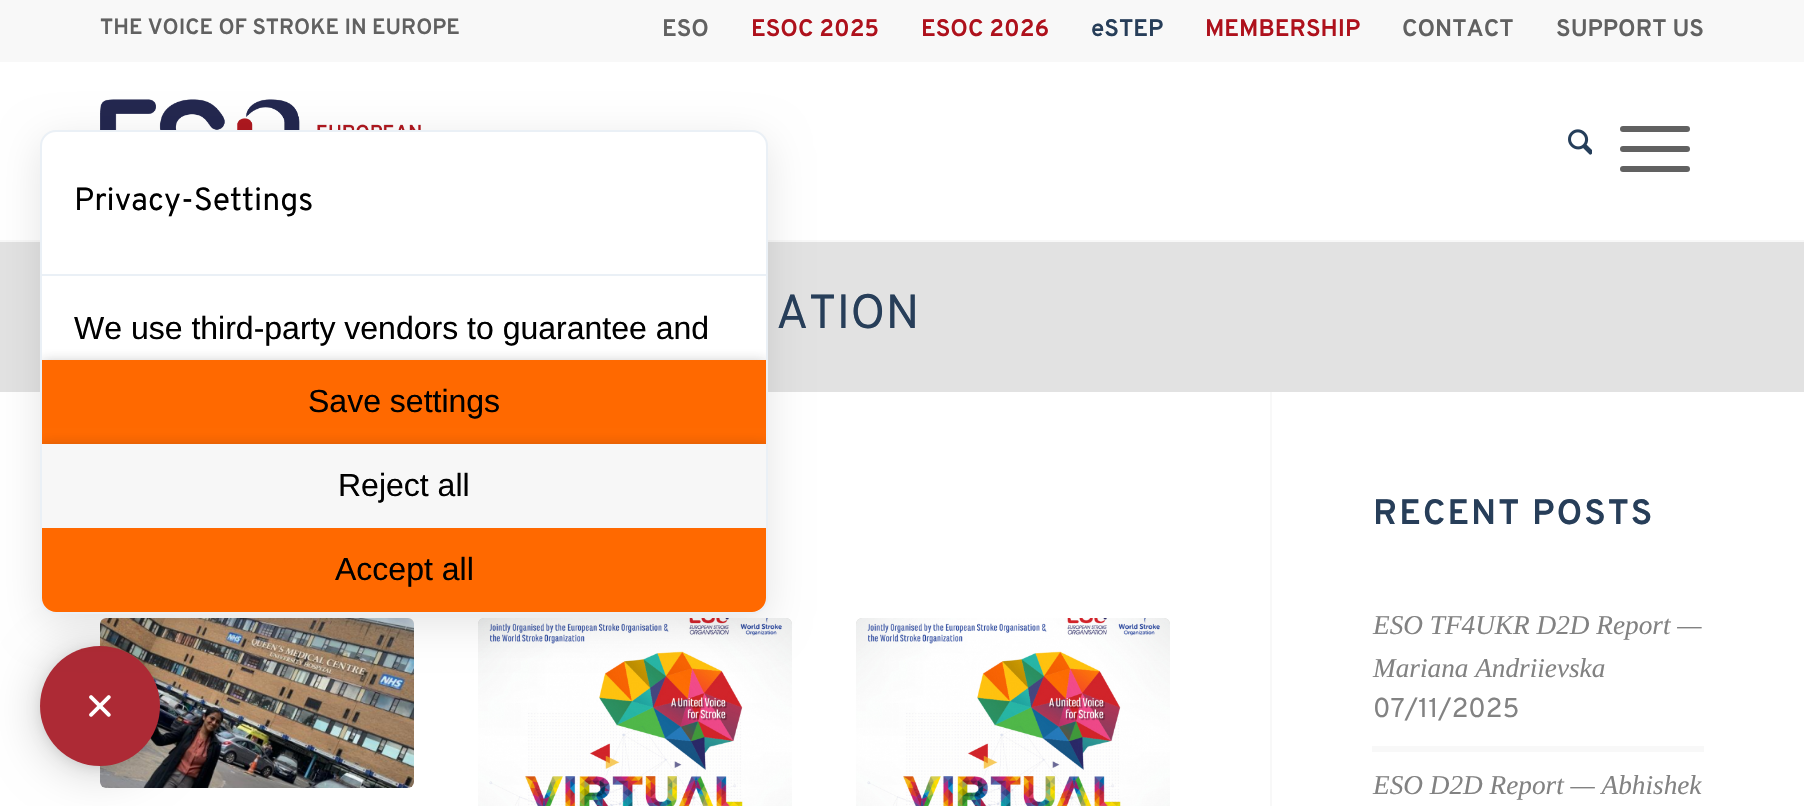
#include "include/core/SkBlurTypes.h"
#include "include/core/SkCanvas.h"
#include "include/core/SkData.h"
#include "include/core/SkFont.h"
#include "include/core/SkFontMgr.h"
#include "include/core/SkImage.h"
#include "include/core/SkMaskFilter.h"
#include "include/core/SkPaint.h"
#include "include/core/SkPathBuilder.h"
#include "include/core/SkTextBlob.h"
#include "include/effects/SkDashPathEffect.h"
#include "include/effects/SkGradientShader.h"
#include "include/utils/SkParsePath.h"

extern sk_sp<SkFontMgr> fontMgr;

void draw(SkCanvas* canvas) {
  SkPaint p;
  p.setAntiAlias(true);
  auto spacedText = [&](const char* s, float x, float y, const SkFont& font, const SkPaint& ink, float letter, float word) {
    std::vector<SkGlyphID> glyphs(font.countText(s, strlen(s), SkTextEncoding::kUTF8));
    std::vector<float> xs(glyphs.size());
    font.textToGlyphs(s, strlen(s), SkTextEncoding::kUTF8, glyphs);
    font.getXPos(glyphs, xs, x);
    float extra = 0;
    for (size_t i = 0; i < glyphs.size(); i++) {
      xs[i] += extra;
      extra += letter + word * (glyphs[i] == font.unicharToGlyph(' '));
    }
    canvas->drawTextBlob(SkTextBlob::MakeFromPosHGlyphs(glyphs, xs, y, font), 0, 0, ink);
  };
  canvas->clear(SK_ColorWHITE);
  p.setColor(SkColorSetRGB(248, 248, 248));
  canvas->drawRect(SkRect::MakeLTRB(0, 0, 1804, 62), p);
  canvas->drawRect(SkRect::MakeLTRB(0, 240, 1804, 242), p);
  canvas->drawImageRect(SkImages::DeferredFromEncodedData(SkData::MakeFromFileName("images/1.png")), SkRect::MakeLTRB(100, 99, 421, 130), SkSamplingOptions());
  canvas->drawImageRect(SkImages::DeferredFromEncodedData(SkData::MakeFromFileName("images/2.png")), SkRect::MakeLTRB(1568, 129, 1592, 155), SkSamplingOptions());
  p.setColor(SkColorSetRGB(97, 97, 97));
  canvas->drawRoundRect(SkRect::MakeLTRB(1620, 146, 1690, 152), 3, 3, p);
  canvas->drawRoundRect(SkRect::MakeLTRB(1620, 126, 1690, 132), 3, 3, p);
  canvas->drawRoundRect(SkRect::MakeLTRB(1620, 166, 1690, 172), 3, 3, p);
  p.setColor(SkColorSetRGB(226, 226, 226));
  canvas->drawRect(SkRect::MakeLTRB(0, 242, 1804, 392), p);
  p.setColor(SkColorSetRGB(248, 248, 248));
  canvas->drawRect(SkRect::MakeLTRB(1270, 392, 1272, 806), p);
  p.setColor(SkColorSetRGB(217, 217, 217));
  canvas->drawRoundRect(SkRect::MakeLTRB(100, 618, 414, 788), 6, 6, p);
  canvas->drawImageRect(SkImages::DeferredFromEncodedData(SkData::MakeFromFileName("images/3.png")), SkRect::MakeLTRB(100, 618, 414, 788), SkSamplingOptions());
  canvas->drawRoundRect(SkRect::MakeLTRB(478, 618, 792, 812), 6, 6, p);
  canvas->drawImageRect(SkImages::DeferredFromEncodedData(SkData::MakeFromFileName("images/4.png")), SkRect::MakeLTRB(478, 618, 792, 806), SkSamplingOptions());
  canvas->drawRoundRect(SkRect::MakeLTRB(856, 618, 1170, 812), 6, 6, p);
  canvas->drawImageRect(SkImages::DeferredFromEncodedData(SkData::MakeFromFileName("images/4.png")), SkRect::MakeLTRB(856, 618, 1170, 806), SkSamplingOptions());
  p.setColor(SkColorSetRGB(248, 248, 248));
  canvas->drawRect(SkRect::MakeLTRB(1372, 746, 1704, 752), p);
  p.setColor(SkColorSetARGB(51, 0, 0, 0));
  p.setMaskFilter(SkMaskFilter::MakeBlur(kNormal_SkBlurStyle, 24));
  canvas->drawRoundRect(SkRect::MakeLTRB(40, 650, 160, 770), 60, 60, p);
  p.setMaskFilter(nullptr);
  p.setColor(SkColorSetARGB(26, 0, 0, 0));
  p.setMaskFilter(SkMaskFilter::MakeBlur(kNormal_SkBlurStyle, 6));
  canvas->drawRoundRect(SkRect::MakeLTRB(40, 648, 160, 768), 60, 60, p);
  p.setMaskFilter(nullptr);
  p.setColor(SkColorSetRGB(173, 42, 53));
  canvas->drawCircle(100, 706, 60, p);
  p.setColor(SkColorSetARGB(26, 0, 0, 0));
  p.setMaskFilter(SkMaskFilter::MakeBlur(kNormal_SkBlurStyle, 20));
  canvas->drawRoundRect(SkRect::MakeLTRB(40, 140, 768, 624), 16, 16, p);
  p.setMaskFilter(nullptr);
  p.setColor(SK_ColorWHITE);
  canvas->drawRoundRect(SkRect::MakeLTRB(41, 131, 767, 613), 15, 15, p);
  p.setStyle(SkPaint::kStroke_Style);
  p.setStrokeWidth(2);
  p.setColor(SkColorSetRGB(234, 240, 246));
  canvas->drawRoundRect(SkRect::MakeLTRB(41, 131, 767, 613), 15, 15, p);
  p.setStyle(SkPaint::kFill_Style);
  canvas->drawRect(SkRect::MakeLTRB(42, 274, 766, 276), p);
  canvas->save();
  canvas->clipPath(SkPathBuilder().moveTo(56, 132).lineTo(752, 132).cubicTo(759.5f, 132, 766, 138.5f, 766, 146).lineTo(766, 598).cubicTo(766, 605.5f, 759.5f, 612, 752, 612).lineTo(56, 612).cubicTo(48.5f, 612, 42, 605.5f, 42, 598).lineTo(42, 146).cubicTo(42, 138.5f, 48.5f, 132, 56, 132).close().detach(), true);
  p.setColor(SkColorSetARGB(71, 32, 33, 36));
  p.setMaskFilter(SkMaskFilter::MakeBlur(kNormal_SkBlurStyle, 6));
  canvas->drawRect(SkRect::MakeLTRB(42, 362, 766, 446), p);
  p.setMaskFilter(nullptr);
  canvas->restore();
  p.setColor(SkColorSetRGB(255, 105, 0));
  canvas->drawRect(SkRect::MakeLTRB(42, 360, 766, 444), p);
  canvas->save();
  canvas->clipPath(SkPathBuilder().moveTo(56, 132).lineTo(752, 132).cubicTo(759.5f, 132, 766, 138.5f, 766, 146).lineTo(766, 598).cubicTo(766, 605.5f, 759.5f, 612, 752, 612).lineTo(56, 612).cubicTo(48.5f, 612, 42, 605.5f, 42, 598).lineTo(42, 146).cubicTo(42, 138.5f, 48.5f, 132, 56, 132).close().detach(), true);
  p.setColor(SkColorSetARGB(71, 32, 33, 36));
  p.setMaskFilter(SkMaskFilter::MakeBlur(kNormal_SkBlurStyle, 6));
  canvas->drawRect(SkRect::MakeLTRB(42, 446, 766, 530), p);
  p.setMaskFilter(nullptr);
  canvas->restore();
  p.setColor(SkColorSetRGB(247, 247, 247));
  canvas->drawRect(SkRect::MakeLTRB(42, 444, 766, 528), p);
  p.setColor(SkColorSetRGB(255, 105, 0));
  canvas->drawPath(SkPathBuilder().moveTo(42, 528).lineTo(766, 528).lineTo(766, 598).cubicTo(766, 605.5f, 759.5f, 612, 752, 612).lineTo(56, 612).cubicTo(48.5f, 612, 42, 605.5f, 42, 598).close().detach(), p);
  canvas->drawImageRect(SkImages::DeferredFromEncodedData(SkData::MakeFromFileName("images/5.png")), SkRect::MakeLTRB(89, 695, 111, 717), SkSamplingOptions());
  SkFont font1(fontMgr->matchFamilyStyle("Overpass", SkFontStyle::Bold()), 22);
  font1.setSubpixel(true);
  p.setColor(SkColorSetRGB(97, 97, 97));
  canvas->drawString("THE VOICE OF STROKE IN EUROPE", 100, 34, font1, p);
  SkFont font2(fontMgr->matchFamilyStyle("Overpass", SkFontStyle::Bold()), 24);
  font2.setSubpixel(true);
  canvas->drawString("ESO", 662, 36, font2, p);
  p.setColor(SkColorSetRGB(174, 17, 28));
  canvas->drawString("ESOC 2025", 751, 36, font2, p);
  canvas->drawString("ESOC 2026", 921, 36, font2, p);
  p.setColor(SkColorSetRGB(39, 62, 89));
  canvas->drawString("eSTEP", 1091, 36, font2, p);
  p.setColor(SkColorSetRGB(174, 17, 28));
  canvas->drawString("MEMBERSHIP", 1205, 36, font2, p);
  p.setColor(SkColorSetRGB(97, 97, 97));
  canvas->drawString("CONTACT", 1402, 36, font2, p);
  canvas->drawString("SUPPORT US", 1556, 36, font2, p);
  SkFont font3(fontMgr->matchFamilyStyle("Overpass", SkFontStyle::Normal()), 48);
  font3.setSubpixel(true);
  p.setColor(SkColorSetRGB(39, 62, 89));
  canvas->drawString("ATION", 776, 328, font3, p);
  SkFont font4(fontMgr->matchFamilyStyle("Overpass", SkFontStyle::Bold()), 35.25f);
  font4.setSubpixel(true);
  spacedText("RECENT POSTS", 1373, 524, font4, p, 2, 0);
  SkFont font5(fontMgr->matchFamilyStyle("Liberation Serif", SkFontStyle::Italic()), 27.25f);
  font5.setSubpixel(true);
  p.setColor(SkColorSetRGB(130, 130, 130));
  canvas->drawString("ESO TF4UKR D2D Report —", 1373, 634, font5, p);
  canvas->drawString("Mariana Andriievska", 1373, 677, font5, p);
  SkFont font6(fontMgr->matchFamilyStyle("Overpass", SkFontStyle::Normal()), 27.25f);
  font6.setSubpixel(true);
  canvas->drawString("07/11/2025", 1373, 717, font6, p);
  canvas->drawString("ESO D2D Report — Abhishek", 1373, 794, font5, p);
  SkFont font7(fontMgr->matchFamilyStyle("Overpass", SkFontStyle::Normal()), 32);
  font7.setSubpixel(true);
  p.setColor(SK_ColorBLACK);
  canvas->drawString("Privacy-Settings", 74, 210, font7, p);
  SkFont font8(fontMgr->matchFamilyStyle("Liberation Sans", SkFontStyle::Normal()), 32);
  font8.setSubpixel(true);
  canvas->drawString("We use third-party vendors to guarantee and", 74, 339, font8, p);
  canvas->drawString("Save settings", 308, 412, font8, p);
  canvas->drawString("Reject all", 338, 496, font8, p);
  canvas->drawString("Accept all", 335, 580, font8, p);
}
